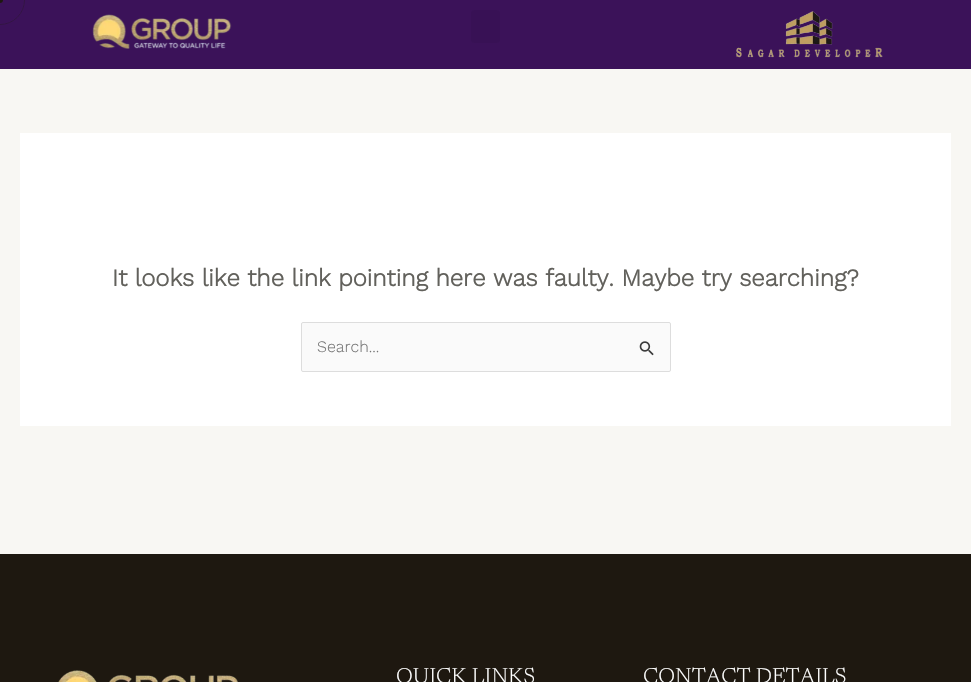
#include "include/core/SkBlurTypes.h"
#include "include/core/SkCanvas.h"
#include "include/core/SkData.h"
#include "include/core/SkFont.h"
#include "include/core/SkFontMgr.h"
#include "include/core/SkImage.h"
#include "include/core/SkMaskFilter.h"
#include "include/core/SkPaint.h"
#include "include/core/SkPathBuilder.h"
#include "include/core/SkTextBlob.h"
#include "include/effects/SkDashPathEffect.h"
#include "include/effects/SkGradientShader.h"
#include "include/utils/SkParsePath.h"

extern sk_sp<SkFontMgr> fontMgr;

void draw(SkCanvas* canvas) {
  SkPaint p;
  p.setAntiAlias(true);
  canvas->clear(SkColorSetRGB(248, 247, 243));
  p.setColor(SkColorSetRGB(59, 18, 89));
  canvas->drawRect(SkRect::MakeLTRB(0, 0, 971, 69), p);
  p.setStyle(SkPaint::kStroke_Style);
  p.setStrokeWidth(1);
  p.setColor(SkColorSetRGB(50, 20, 67));
  canvas->drawCircle(0, 0, 24.5f, p);
  p.setStyle(SkPaint::kFill_Style);
  p.setColor(SkColorSetRGB(30, 24, 16));
  canvas->drawCircle(0, 0, 3, p);
  canvas->drawImageRect(SkImages::DeferredFromEncodedData(SkData::MakeFromFileName("images/1.png")), SkRect::MakeLTRB(92, 14, 232, 49), SkSamplingOptions());
  p.setColor(SkColorSetRGB(56, 17, 85));
  canvas->drawRoundRect(SkRect::MakeLTRB(471, 10, 500, 43), 3, 3, p);
  canvas->drawImageRect(SkImages::DeferredFromEncodedData(SkData::MakeFromFileName("images/2.png")), SkRect::MakeLTRB(736, 11, 883, 58), SkSamplingOptions());
  p.setColor(SK_ColorWHITE);
  canvas->drawRect(SkRect::MakeLTRB(20, 133, 951, 426), p);
  p.setColor(SkColorSetRGB(250, 250, 250));
  canvas->drawRoundRect(SkRect::MakeLTRB(301.5f, 322.5f, 670.5f, 371.5f), 1.5f, 1.5f, p);
  p.setStyle(SkPaint::kStroke_Style);
  p.setColor(SkColorSetRGB(221, 221, 221));
  canvas->drawRoundRect(SkRect::MakeLTRB(301.5f, 322.5f, 670.5f, 371.5f), 1.5f, 1.5f, p);
  canvas->drawImageRect(SkImages::DeferredFromEncodedData(SkData::MakeFromFileName("images/3.png")), SkRect::MakeLTRB(639, 341, 654, 356), SkSamplingOptions());
  p.setStyle(SkPaint::kFill_Style);
  p.setColor(SkColorSetRGB(30, 24, 16));
  canvas->drawRect(SkRect::MakeLTRB(0, 554, 971, 682), p);
  canvas->drawImageRect(SkImages::DeferredFromEncodedData(SkData::MakeFromFileName("images/4.png")), SkRect::MakeLTRB(58, 670, 238, 682), SkSamplingOptions());
  SkFont font1(fontMgr->matchFamilyStyle("Work Sans", SkFontStyle::Bold()), 24);
  font1.setSubpixel(true);
  p.setColor(SkColorSetRGB(98, 97, 92));
  canvas->drawString("It looks like the link pointing here was faulty. Maybe try searching?", 112, 286, font1, p);
  SkFont font2(fontMgr->matchFamilyStyle("Work Sans", SkFontStyle(300, SkFontStyle::kNormal_Width, SkFontStyle::kUpright_Slant)), 16);
  font2.setSubpixel(true);
  p.setColor(SkColorSetRGB(117, 117, 117));
  canvas->drawString("Search...", 317, 352, font2, p);
  SkFont font3(fontMgr->matchFamilyStyle("Newsreader", SkFontStyle(300, SkFontStyle::kNormal_Width, SkFontStyle::kUpright_Slant)), 22);
  font3.setSubpixel(true);
  p.setColor(SK_ColorWHITE);
  canvas->drawString("QUICK LINKS", 396, 683, font3, p);
  canvas->drawString("CONTACT DETAILS", 643, 683, font3, p);
}
